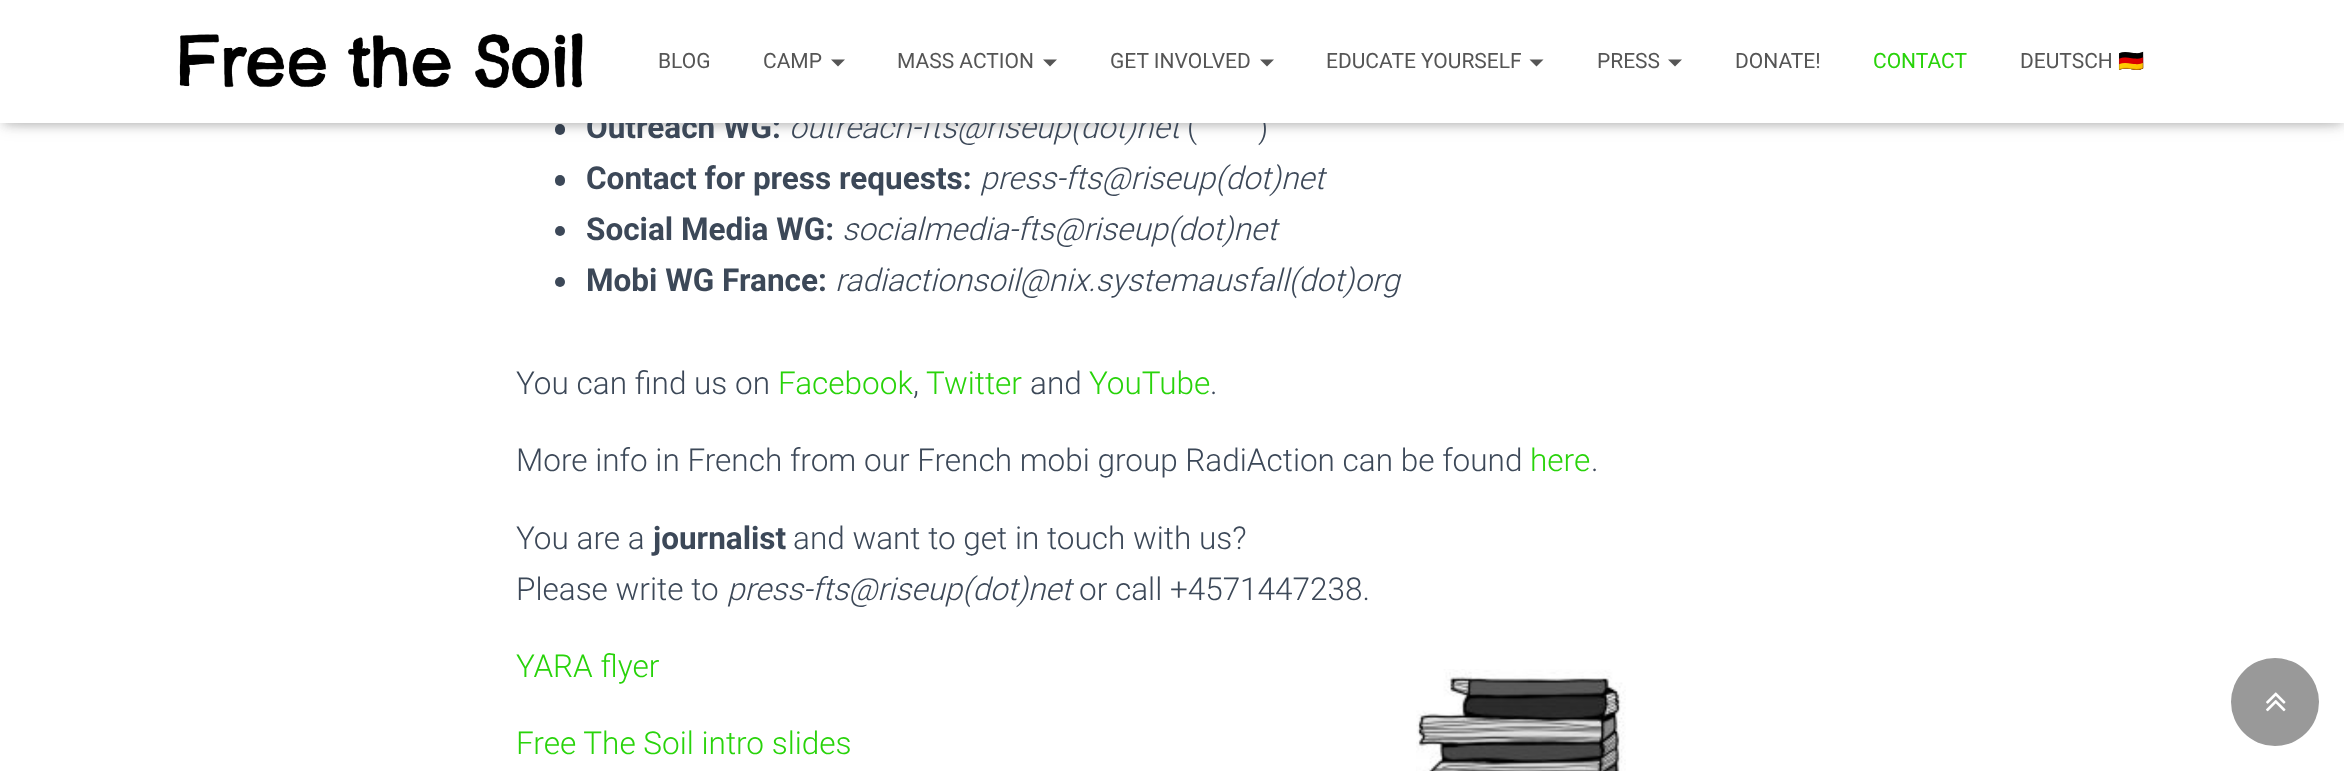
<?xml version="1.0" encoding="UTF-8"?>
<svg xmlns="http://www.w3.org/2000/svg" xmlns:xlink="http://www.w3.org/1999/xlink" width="2344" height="771">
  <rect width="100%" height="100%" fill="#ffffff" />
  <rect x="555" y="124" width="10" height="11" rx="5" fill="#3c4858" />
  <rect x="4" y="11" width="2338" height="115" fill="#000000" fill-opacity="0.1" filter="blur(4.5px)" />
  <rect y="2" width="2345" height="122" fill="#000000" fill-opacity="0.12" filter="blur(9px)" />
  <rect x="11" y="12" width="2324" height="102" fill="#000000" fill-opacity="0.42" filter="blur(9px)" />
  <rect x="555" y="175" width="10" height="11" rx="5" fill="#3c4858" />
  <circle cx="560" cy="231" r="5" fill="#3c4858" />
  <circle cx="560" cy="282" r="5" fill="#3c4858" />
  <image x="1416" y="669" width="210" height="102" xlink:href="image2.png" />
  <circle cx="2275" cy="702" r="44" fill="#999999" />
  <image x="2266" y="692" width="20" height="20" xlink:href="image3.png" />
  <text x="586" y="138" style="font-family: Roboto; font-size: 31.5px; font-weight: bold; fill: #3c4858">Outreach WG:</text>
  <text x="789" y="138" style="font-family: Roboto; font-size: 31.5px; font-weight: 300; font-style: italic; fill: #3c4858">outreach-fts@riseup(dot)net</text>
  <text x="1187" y="138" style="font-family: Roboto; font-size: 31.5px; font-weight: 300; fill: #3c4858">(</text>
  <text x="1258" y="138" style="font-family: Roboto; font-size: 31.5px; font-weight: 300; fill: #3c4858">)</text>
  <rect width="2344" height="123" fill="#ffffff" />
  <text x="2118" y="68" style="font-family: Noto Color Emoji; font-size: 21px; fill: #555555">🇩🇪</text>
  <text x="2020" y="68" style="font-family: Roboto; font-size: 21px; fill: #555555">DEUTSCH</text>
  <text x="1873" y="68" style="font-family: Roboto; font-size: 21px; fill: #28d30a">CONTACT</text>
  <text x="1735" y="68" style="font-family: Roboto; font-size: 21px; fill: #555555">DONATE!</text>
  <path d="M 1668 59.5 h 14 l -7 7 z" fill="#555555" />
  <text x="1597" y="68" style="font-family: Roboto; font-size: 21px; fill: #555555">PRESS</text>
  <path d="M 1529.5 59.5 h 14 l -7 7 z" fill="#555555" />
  <text x="1326" y="68" style="font-family: Roboto; font-size: 21px; fill: #555555">EDUCATE YOURSELF</text>
  <path d="M 1260 59.5 h 14 l -7 7 z" fill="#555555" />
  <text x="1110" y="68" style="font-family: Roboto; font-size: 21px; fill: #555555">GET INVOLVED</text>
  <path d="M 1043 59.5 h 14 l -7 7 z" fill="#555555" />
  <text x="897" y="68" style="font-family: Roboto; font-size: 21px; fill: #555555">MASS ACTION</text>
  <path d="M 831 59.5 h 14 l -7 7 z" fill="#555555" />
  <text x="763" y="68" style="font-family: Roboto; font-size: 21px; fill: #555555">CAMP</text>
  <text x="658" y="68" style="font-family: Roboto; font-size: 21px; fill: #555555">BLOG</text>
  <image x="179" y="33" width="404" height="56" xlink:href="image1.png" />
  <text x="586" y="189" style="font-family: Roboto; font-size: 31.5px; font-weight: bold; fill: #3c4858">Contact for press requests:</text>
  <text x="980" y="189" style="font-family: Roboto; font-size: 31.5px; font-weight: 300; font-style: italic; fill: #3c4858">press-fts@riseup(dot)net</text>
  <text x="586" y="240" style="font-family: Roboto; font-size: 31.5px; font-weight: bold; fill: #3c4858">Social Media WG:</text>
  <text x="842" y="240" style="font-family: Roboto; font-size: 31.5px; font-weight: 300; font-style: italic; fill: #3c4858">socialmedia-fts@riseup(dot)net</text>
  <text x="586" y="291" style="font-family: Roboto; font-size: 31.5px; font-weight: bold; fill: #3c4858">Mobi WG France:</text>
  <text x="835" y="291" style="font-family: Roboto; font-size: 31.5px; font-weight: 300; font-style: italic; fill: #3c4858">radiactionsoil@nix.systemausfall(dot)org</text>
  <text x="516" y="394" style="font-family: Roboto; font-size: 31.5px; font-weight: 300; fill: #3c4858">You can find us on</text>
  <text x="778" y="394" style="font-family: Roboto; font-size: 31.5px; font-weight: 300; fill: #28d30a">Facebook</text>
  <text x="913" y="394" style="font-family: Roboto; font-size: 31.5px; font-weight: 300; fill: #3c4858">,</text>
  <text x="926" y="394" style="font-family: Roboto; font-size: 31.5px; font-weight: 300; fill: #28d30a">Twitter</text>
  <text x="1030" y="394" style="font-family: Roboto; font-size: 31.5px; font-weight: 300; fill: #3c4858">and</text>
  <text x="1089" y="394" style="font-family: Roboto; font-size: 31.5px; font-weight: 300; fill: #28d30a">YouTube</text>
  <text x="1210" y="394" style="font-family: Roboto; font-size: 31.5px; font-weight: 300; fill: #3c4858">.</text>
  <text x="516" y="471" style="font-family: Roboto; font-size: 31.5px; font-weight: 300; fill: #3c4858">More info in French from our French mobi group RadiAction can be found</text>
  <text x="1530" y="471" style="font-family: Roboto; font-size: 31.5px; font-weight: 300; fill: #28d30a">here</text>
  <text x="1591" y="471" style="font-family: Roboto; font-size: 31.5px; font-weight: 300; fill: #3c4858">.</text>
  <text x="516" y="549" style="font-family: Roboto; font-size: 31.5px; font-weight: 300; fill: #3c4858">You are a</text>
  <text x="653" y="549" style="font-family: Roboto; font-size: 31.5px; font-weight: bold; fill: #3c4858">journalist</text>
  <text x="793" y="549" style="font-family: Roboto; font-size: 31.5px; font-weight: 300; fill: #3c4858">and want to get in touch with us?</text>
  <text x="516" y="600" style="font-family: Roboto; font-size: 31.5px; font-weight: 300; fill: #3c4858">Please write to</text>
  <text x="727" y="600" style="font-family: Roboto; font-size: 31.5px; font-weight: 300; font-style: italic; fill: #3c4858">press-fts@riseup(dot)net</text>
  <text x="1079" y="600" style="font-family: Roboto; font-size: 31.5px; font-weight: 300; fill: #3c4858">or call +4571447238.</text>
  <text x="516" y="677" style="font-family: Roboto; font-size: 31.5px; font-weight: 300; fill: #28d30a">YARA flyer</text>
  <text x="516" y="754" style="font-family: Roboto; font-size: 31.5px; font-weight: 300; fill: #28d30a">Free The Soil intro slides</text>
</svg>
